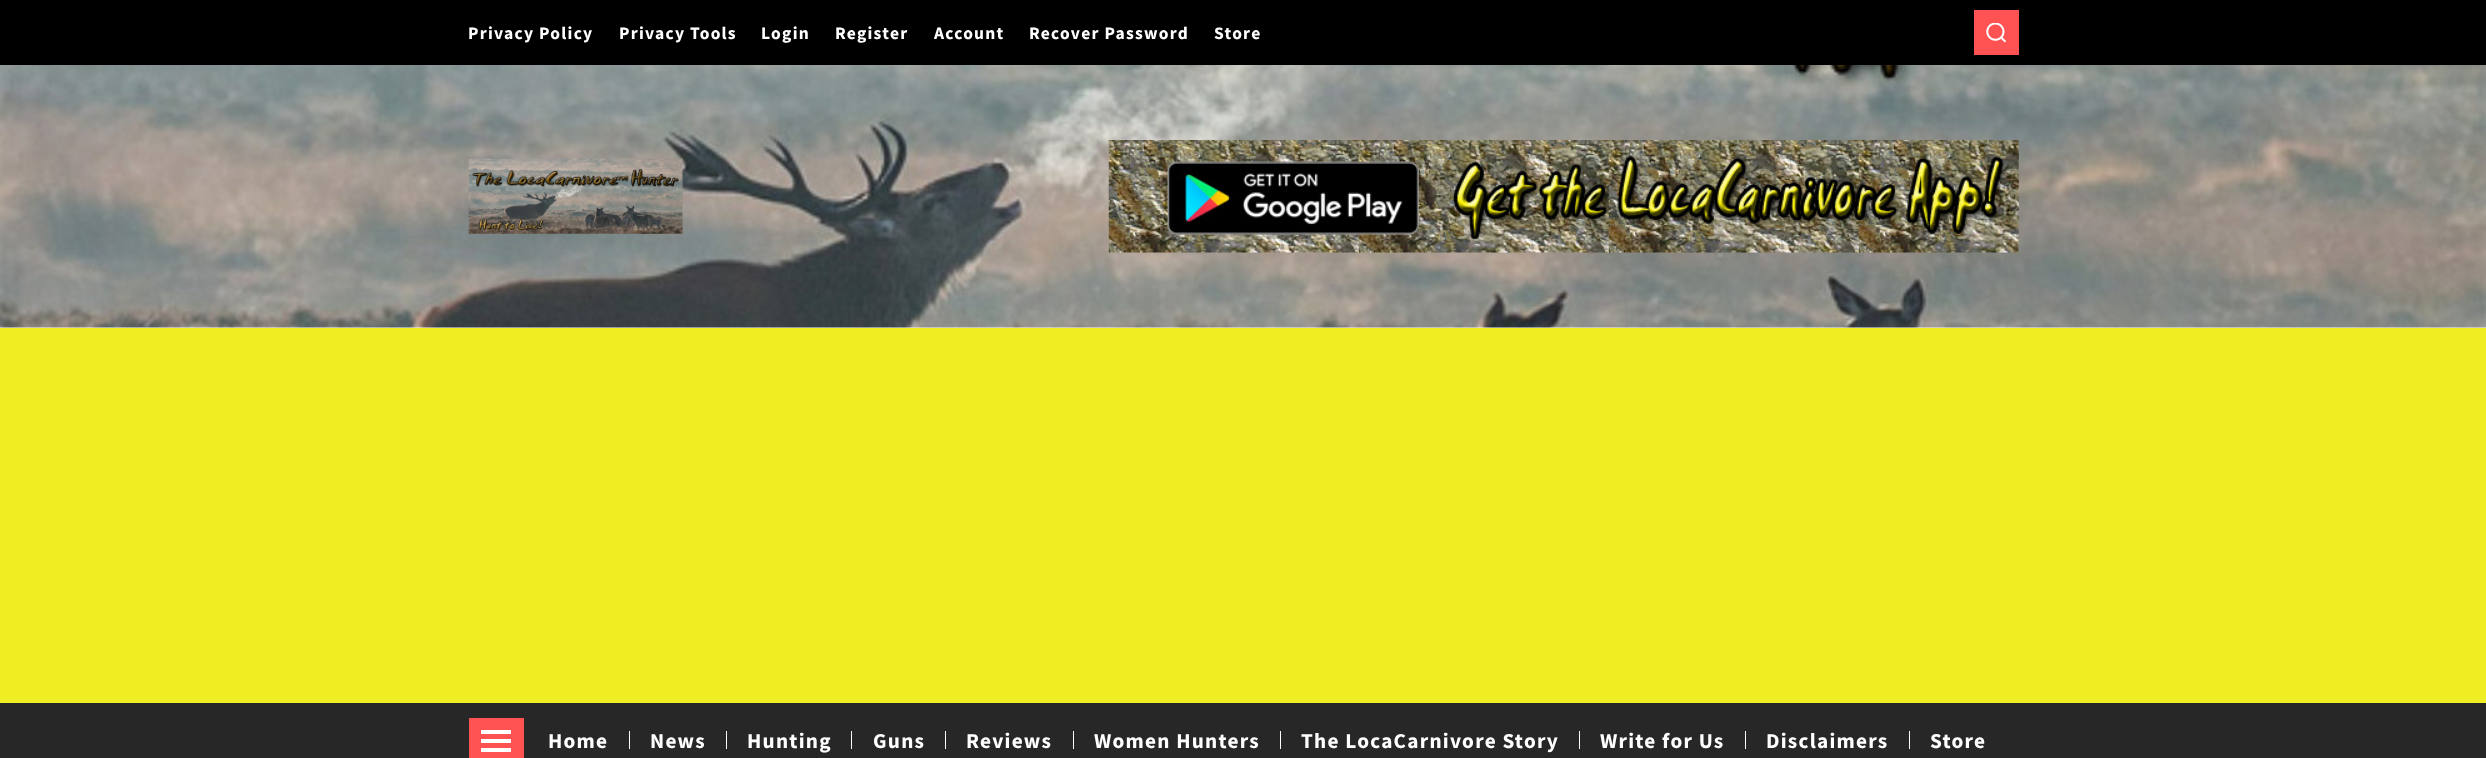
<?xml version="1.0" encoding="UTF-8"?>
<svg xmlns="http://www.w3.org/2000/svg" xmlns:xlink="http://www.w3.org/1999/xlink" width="2486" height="758">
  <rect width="100%" height="100%" fill="#eeee22" />
  <rect width="2486" height="65" fill="#000000" />
  <rect x="1974" y="10" width="45" height="45" fill="#ff5252" />
  <image x="1986" y="23" width="20" height="20" xlink:href="image1.png" />
  <rect y="327" width="2486" height="1" fill="#ffffff" />
  <image x="0" y="65" width="2486" height="263" xlink:href="image2.png" />
  <image x="468" y="158" width="215" height="76" xlink:href="image3.png" />
  <image x="1108" y="140" width="911" height="113" xlink:href="image4.png" />
  <rect y="703" width="2486" height="55" fill="#272727" />
  <rect x="469" y="718" width="55" height="40" fill="#ff5252" />
  <rect x="481" y="730" width="30" height="4" fill="#ffffff" />
  <rect x="481" y="739" width="30" height="4" fill="#ffffff" />
  <rect x="481" y="748" width="30" height="4" fill="#ffffff" />
  <rect x="629" y="731" width="1" height="18" fill="#ffffff" />
  <rect x="726" y="731" width="1" height="18" fill="#ffffff" />
  <rect x="851" y="731" width="1" height="18" fill="#ffffff" />
  <rect x="945" y="731" width="1" height="18" fill="#ffffff" />
  <rect x="1073" y="731" width="1" height="18" fill="#ffffff" />
  <rect x="1280" y="731" width="1" height="18" fill="#ffffff" />
  <rect x="1579" y="731" width="1" height="18" fill="#ffffff" />
  <rect x="1745" y="731" width="1" height="18" fill="#ffffff" />
  <rect x="1909" y="731" width="1" height="18" fill="#ffffff" />
  <text x="468" y="39" style="font-family: Source Sans Pro; font-size: 17.5px; font-weight: bold; letter-spacing: 1.25px; fill: #ffffff">Privacy Policy</text>
  <text x="619" y="39" style="font-family: Source Sans Pro; font-size: 17.5px; font-weight: bold; letter-spacing: 1.25px; fill: #ffffff">Privacy Tools</text>
  <text x="761" y="39" style="font-family: Source Sans Pro; font-size: 17.5px; font-weight: bold; letter-spacing: 1.25px; fill: #ffffff">Login</text>
  <text x="835" y="39" style="font-family: Source Sans Pro; font-size: 17.5px; font-weight: bold; letter-spacing: 1.25px; fill: #ffffff">Register</text>
  <text x="934" y="39" style="font-family: Source Sans Pro; font-size: 17.5px; font-weight: bold; letter-spacing: 1.25px; fill: #ffffff">Account</text>
  <text x="1029" y="39" style="font-family: Source Sans Pro; font-size: 17.5px; font-weight: bold; letter-spacing: 1.25px; fill: #ffffff">Recover Password</text>
  <text x="1214" y="39" style="font-family: Source Sans Pro; font-size: 17.5px; font-weight: bold; letter-spacing: 1.25px; fill: #ffffff">Store</text>
  <text x="548" y="748" style="font-family: Source Sans Pro; font-size: 21.25px; font-weight: bold; letter-spacing: 1.25px; fill: #ffffff">Home</text>
  <text x="650" y="748" style="font-family: Source Sans Pro; font-size: 21.25px; font-weight: bold; letter-spacing: 1.25px; fill: #ffffff">News</text>
  <text x="747" y="748" style="font-family: Source Sans Pro; font-size: 21.25px; font-weight: bold; letter-spacing: 1.25px; fill: #ffffff">Hunting</text>
  <text x="873" y="748" style="font-family: Source Sans Pro; font-size: 21.25px; font-weight: bold; letter-spacing: 1.25px; fill: #ffffff">Guns</text>
  <text x="966" y="748" style="font-family: Source Sans Pro; font-size: 21.25px; font-weight: bold; letter-spacing: 1.25px; fill: #ffffff">Reviews</text>
  <text x="1094" y="748" style="font-family: Source Sans Pro; font-size: 21.25px; font-weight: bold; letter-spacing: 1.25px; fill: #ffffff">Women Hunters</text>
  <text x="1301" y="748" style="font-family: Source Sans Pro; font-size: 21.25px; font-weight: bold; letter-spacing: 1.25px; fill: #ffffff">The LocaCarnivore Story</text>
  <text x="1600" y="748" style="font-family: Source Sans Pro; font-size: 21.25px; font-weight: bold; letter-spacing: 1.25px; fill: #ffffff">Write for Us</text>
  <text x="1766" y="748" style="font-family: Source Sans Pro; font-size: 21.25px; font-weight: bold; letter-spacing: 1.25px; fill: #ffffff">Disclaimers</text>
  <text x="1930" y="748" style="font-family: Source Sans Pro; font-size: 21.25px; font-weight: bold; letter-spacing: 1.25px; fill: #ffffff">Store</text>
</svg>
